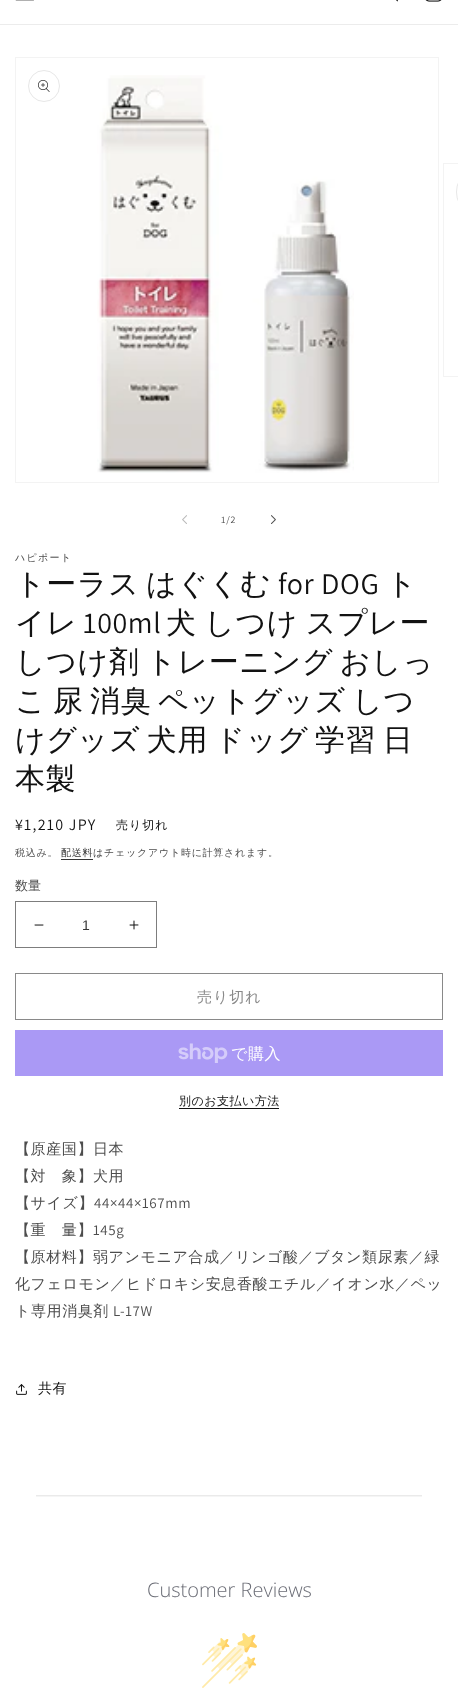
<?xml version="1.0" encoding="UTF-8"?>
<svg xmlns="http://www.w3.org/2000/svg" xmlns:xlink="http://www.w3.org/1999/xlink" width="458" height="1697">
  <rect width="100%" height="100%" fill="#ffffff" />
  <rect y="24" width="458" height="1" fill="#ececec" />
  <image x="15" y="0" width="19" height="1" xlink:href="image1.png" />
  <image x="396" y="0" width="2" height="2" xlink:href="image2.png" />
  <image x="425" y="0" width="17" height="2" xlink:href="image3.png" />
  <rect x="15.5" y="57.5" width="423" height="425" fill="none" stroke="#f3f3f3" />
  <image x="97" y="75" width="257" height="398" xlink:href="image4.png" />
  <circle cx="44" cy="86" r="15.5" fill="none" stroke="#e7e7e7" />
  <image x="38" y="80" width="12" height="12" xlink:href="image5.png" />
  <rect x="443.5" y="163.5" width="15" height="213" fill="none" stroke="#f3f3f3" />
  <rect x="456.5" y="176.5" width="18" height="31" rx="15.5" fill="none" stroke="#e7e7e7" />
  <image x="182" y="515" width="5" height="9" xlink:href="image6.png" />
  <image x="271" y="515" width="5" height="9" xlink:href="image7.png" />
  <rect x="61" y="859" width="32" height="1" fill="#363636" />
  <image x="34" y="924" width="10" height="2" xlink:href="image8.png" />
  <image x="129" y="920" width="10" height="10" xlink:href="image9.png" />
  <rect x="15.5" y="901.5" width="141" height="46" fill="none" stroke="#7d7d7d" />
  <rect x="15.5" y="973.5" width="427" height="46" fill="none" stroke="#898989" />
  <rect x="15" y="1030" width="428" height="46" fill="#aa99f5" />
  <image x="178" y="1043" width="50" height="20" xlink:href="image10.png" />
  <rect x="179" y="1108" width="100" height="1" fill="#121212" />
  <image x="16" y="1384" width="11" height="11" xlink:href="image11.png" />
  <image x="36" y="1495" width="386" height="2" xlink:href="image12.png" />
  <image x="202" y="1633" width="55" height="55" xlink:href="image13.png" />
  <text x="221" y="523" style="font-family: Assistant; font-size: 10px; letter-spacing: 0.75px; fill: #4d4d4d">1/2</text>
  <text x="15" y="561" style="font-family: WenQuanYi Zen Hei; font-size: 10px; font-weight: 500; letter-spacing: 1.25px; fill: #4d4d4d">ハピポート</text>
  <text x="15" y="594" style="font-family: WenQuanYi Zen Hei; font-size: 30px; font-weight: 500; letter-spacing: 0.6px; fill: #121212">トーラス</text>
  <text x="146" y="594" style="font-family: WenQuanYi Zen Hei; font-size: 30px; font-weight: 500; letter-spacing: 0.6px; fill: #121212">はぐくむ</text>
  <text x="278" y="594" style="font-family: Assistant; font-size: 30px; letter-spacing: 0.6px; fill: #121212">for DOG</text>
  <text x="386" y="594" style="font-family: WenQuanYi Zen Hei; font-size: 30px; font-weight: 500; letter-spacing: 0.6px; fill: #121212">ト</text>
  <text x="15" y="633" style="font-family: WenQuanYi Zen Hei; font-size: 30px; font-weight: 500; letter-spacing: 0.6px; fill: #121212">イレ</text>
  <text x="83" y="633" style="font-family: Assistant; font-size: 30px; letter-spacing: 0.6px; fill: #121212">100ml</text>
  <text x="166" y="633" word-spacing="-2" style="font-family: WenQuanYi Zen Hei; font-size: 30px; font-weight: 500; letter-spacing: 0.6px; fill: #121212">犬 しつけ スプレー</text>
  <text x="15" y="672" word-spacing="-3" style="font-family: WenQuanYi Zen Hei; font-size: 30px; font-weight: 500; letter-spacing: 0.6px; fill: #121212">しつけ剤 トレーニング おしっ</text>
  <text x="15" y="711" word-spacing="-3" style="font-family: WenQuanYi Zen Hei; font-size: 30px; font-weight: 500; letter-spacing: 0.6px; fill: #121212">こ 尿 消臭 ペットグッズ しつ</text>
  <text x="15" y="750" word-spacing="-3" style="font-family: WenQuanYi Zen Hei; font-size: 30px; font-weight: 500; letter-spacing: 0.6px; fill: #121212">けグッズ 犬用 ドッグ</text>
  <text x="315" y="750" word-spacing="-3" style="font-family: WenQuanYi Zen Hei; font-size: 30px; font-weight: 500; letter-spacing: 0.6px; fill: #121212">学習 日</text>
  <text x="15" y="789" style="font-family: WenQuanYi Zen Hei; font-size: 30px; font-weight: 500; letter-spacing: 0.6px; fill: #121212">本製</text>
  <text x="15" y="830" style="font-family: Assistant; font-size: 16px; letter-spacing: 1.25px; fill: #121212">¥1,210 JPY</text>
  <text x="116" y="829" style="font-family: WenQuanYi Zen Hei; font-size: 12px; font-weight: 500; letter-spacing: 1px; fill: #121212">売り切れ</text>
  <text x="15" y="856" style="font-family: WenQuanYi Zen Hei; font-size: 10px; font-weight: 500; letter-spacing: 0.75px; fill: #4d4d4d">税込み。</text>
  <text x="61" y="856" style="font-family: WenQuanYi Zen Hei; font-size: 10px; font-weight: 500; letter-spacing: 0.75px; fill: #363636">配送料</text>
  <text x="93" y="856" style="font-family: WenQuanYi Zen Hei; font-size: 10px; font-weight: 500; letter-spacing: 0.75px; fill: #4d4d4d">はチェックアウト時に計算されます。</text>
  <text x="15" y="890" style="font-family: WenQuanYi Zen Hei; font-size: 13px; font-weight: 500; fill: #4d4d4d">数量</text>
  <text x="82" y="930" style="font-family: Liberation Sans; font-size: 14px; fill: #363636">1</text>
  <text x="197" y="1002" style="font-family: WenQuanYi Zen Hei; font-size: 15px; font-weight: 500; letter-spacing: 1px; fill: #898989">売り切れ</text>
  <text x="231" y="1059" style="font-family: WenQuanYi Zen Hei; font-size: 16px; font-weight: 500; letter-spacing: 0.6px; fill: #ffffff">で購入</text>
  <text x="179" y="1105" style="font-family: WenQuanYi Zen Hei; font-size: 12px; font-weight: 500; letter-spacing: 0.5px; fill: #121212">別のお支払い方法</text>
  <text x="15" y="1154" style="font-family: WenQuanYi Zen Hei; font-size: 15px; font-weight: 500; letter-spacing: 0.6px; fill: #4d4d4d">【原産国】日本</text>
  <text x="15" y="1181" style="font-family: WenQuanYi Zen Hei; font-size: 15px; font-weight: 500; letter-spacing: 0.6px; fill: #4d4d4d">【対　象】犬用</text>
  <text x="15" y="1208" style="font-family: WenQuanYi Zen Hei; font-size: 15px; font-weight: 500; letter-spacing: 0.6px; fill: #4d4d4d">【サイズ】</text>
  <text x="94" y="1208" style="font-family: Assistant; font-size: 15px; letter-spacing: 0.6px; fill: #4d4d4d">44×44×167mm</text>
  <text x="15" y="1235" style="font-family: WenQuanYi Zen Hei; font-size: 15px; font-weight: 500; letter-spacing: 0.6px; fill: #4d4d4d">【重　量】</text>
  <text x="93" y="1235" style="font-family: Assistant; font-size: 15px; letter-spacing: 0.6px; fill: #4d4d4d">145g</text>
  <text x="15" y="1262" style="font-family: WenQuanYi Zen Hei; font-size: 15px; font-weight: 500; letter-spacing: 0.6px; fill: #4d4d4d">【原材料】弱アンモニア合成／リンゴ酸／ブタン類尿素／緑</text>
  <text x="15" y="1289" style="font-family: WenQuanYi Zen Hei; font-size: 15px; font-weight: 500; letter-spacing: 0.6px; fill: #4d4d4d">化フェロモン／ヒドロキシ安息香酸エチル／イオン水／ペッ</text>
  <text x="15" y="1316" style="font-family: WenQuanYi Zen Hei; font-size: 15px; font-weight: 500; letter-spacing: 0.6px; fill: #4d4d4d">ト専用消臭剤</text>
  <text x="113" y="1316" style="font-family: Assistant; font-size: 15px; letter-spacing: 0.6px; fill: #4d4d4d">L-17W</text>
  <text x="38" y="1393" style="font-family: WenQuanYi Zen Hei; font-size: 14px; font-weight: 500; letter-spacing: 0.6px; fill: #121212">共有</text>
  <text x="147" y="1597" style="font-family: Open Sans; font-size: 20px; font-weight: 300; fill: #6b6d76">Customer Reviews</text>
</svg>
